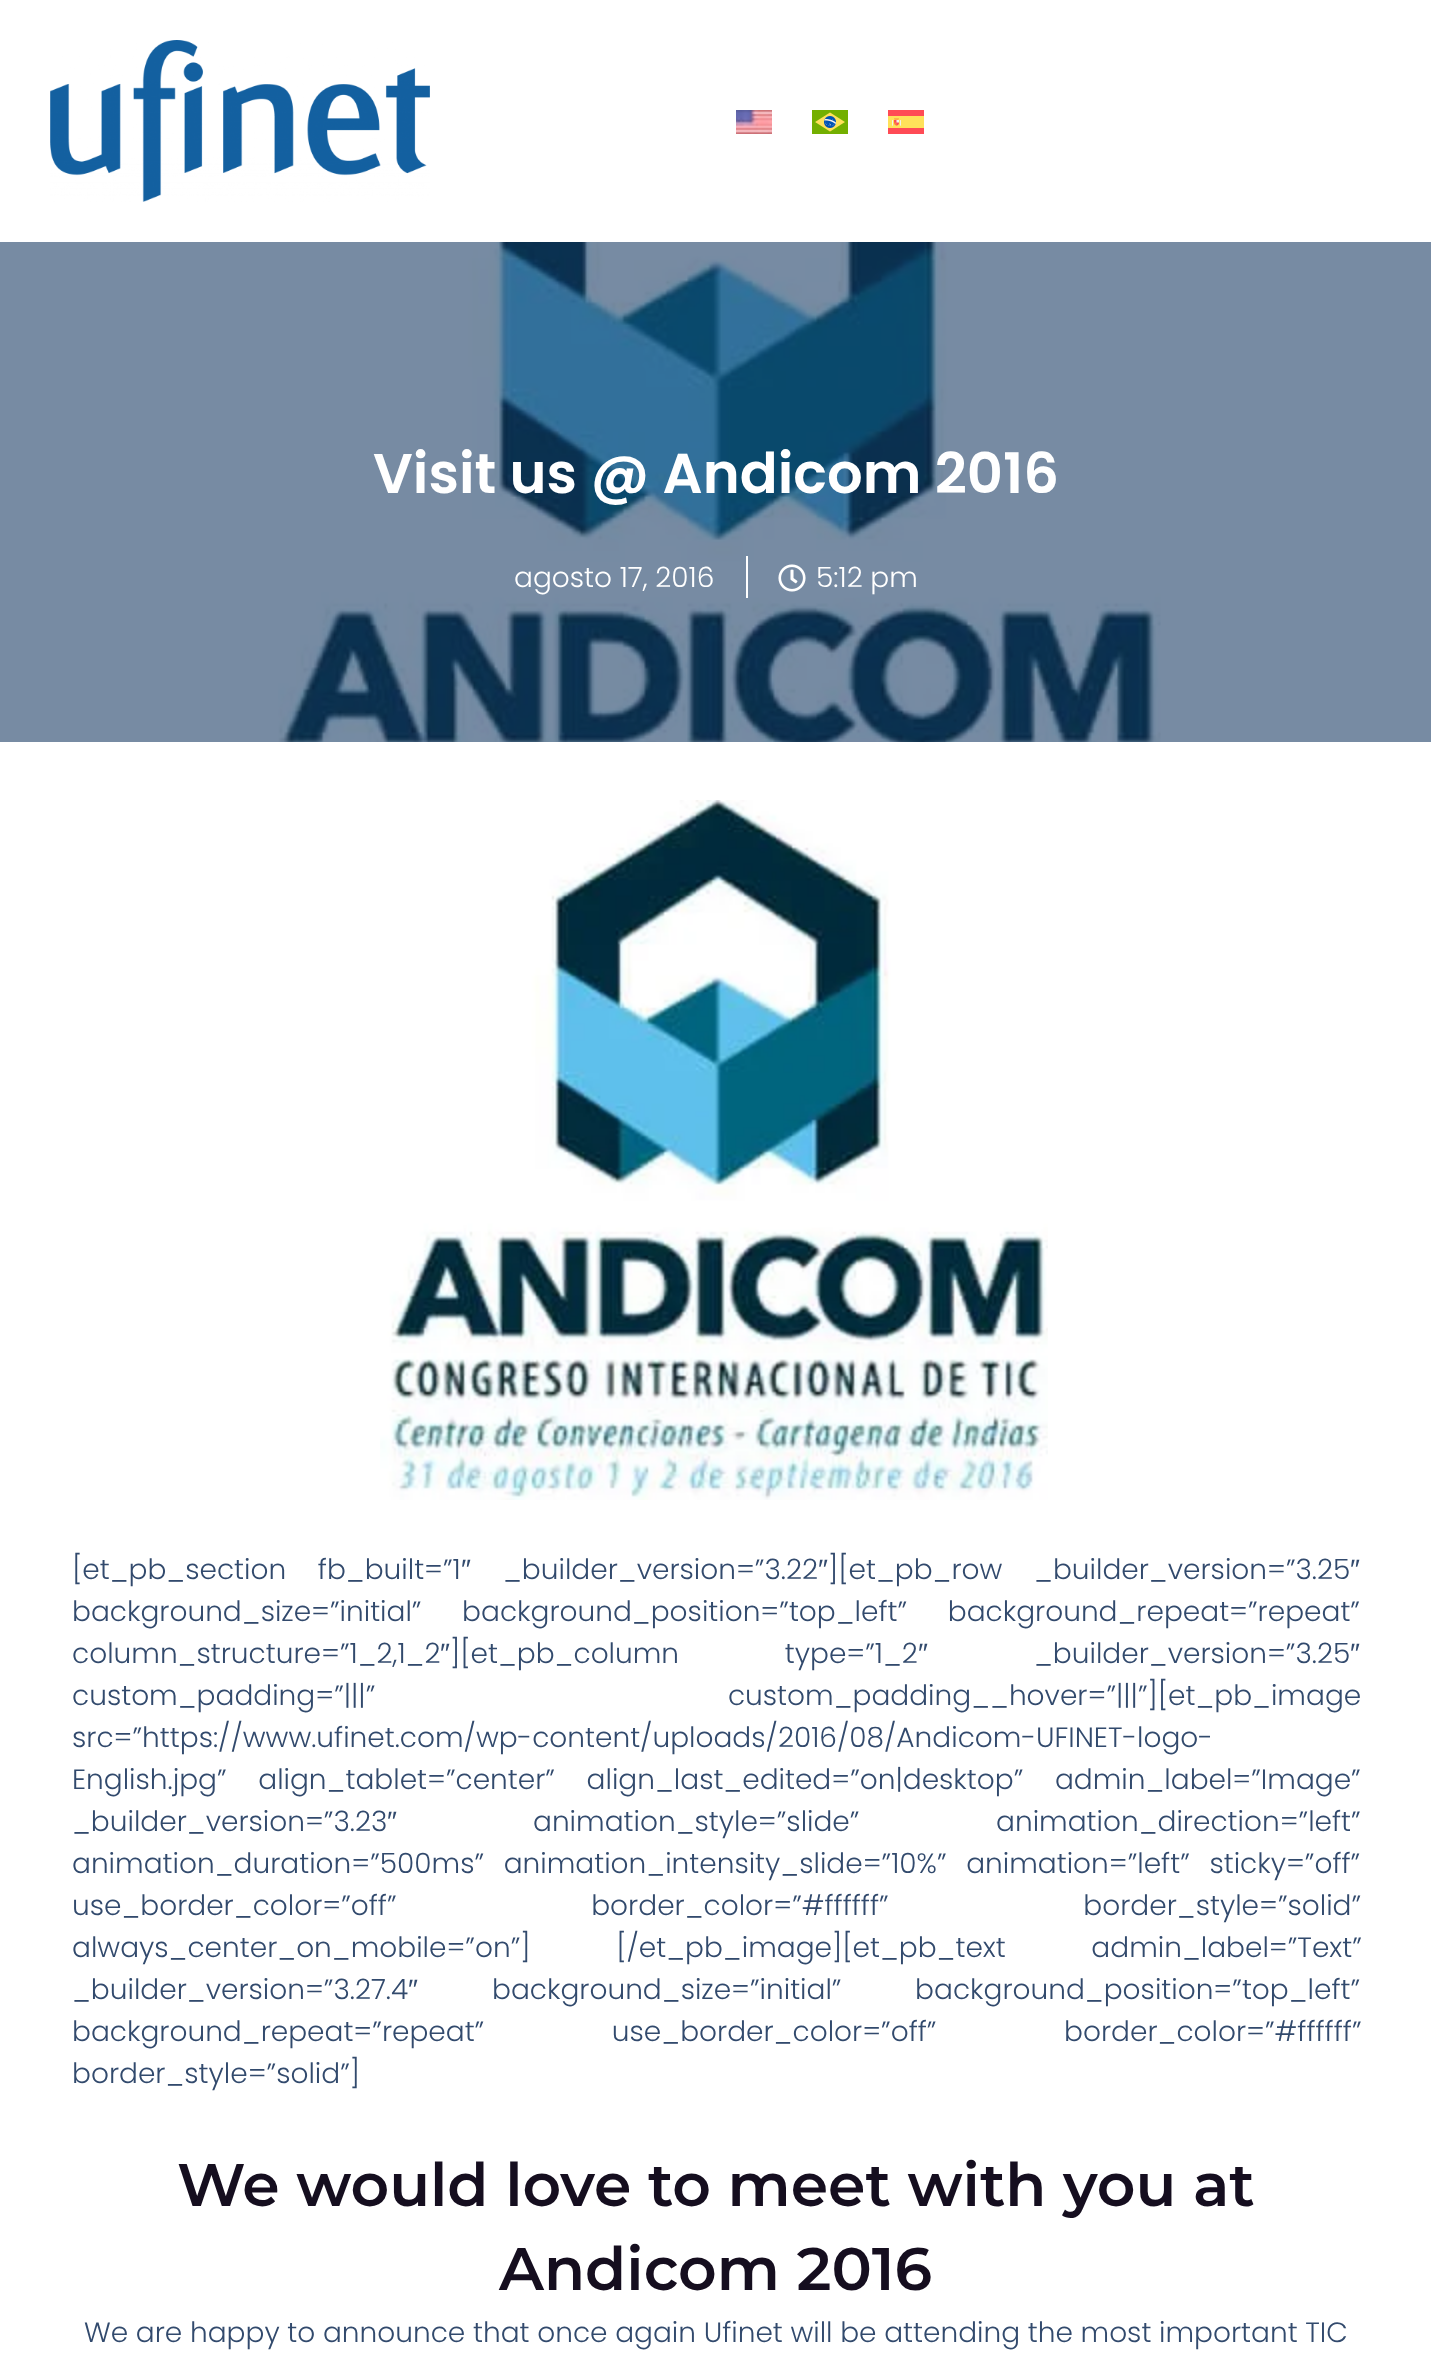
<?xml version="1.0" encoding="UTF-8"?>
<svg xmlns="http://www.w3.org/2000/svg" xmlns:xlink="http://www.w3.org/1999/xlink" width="1431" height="2358">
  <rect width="100%" height="100%" fill="#ffffff" />
  <rect y="242" width="1431" height="500" fill="#778ba3" />
  <image x="50" y="40" width="380" height="162" xlink:href="image1.png" />
  <image x="736" y="110" width="36" height="24" xlink:href="image2.png" />
  <image x="812" y="110" width="36" height="24" xlink:href="image3.png" />
  <image x="888" y="110" width="36" height="24" xlink:href="image4.png" />
  <image x="278" y="242" width="883" height="500" xlink:href="image5.png" />
  <rect x="746" y="556" width="2" height="42" fill="#ffffff" />
  <image x="778" y="564" width="28" height="28" xlink:href="image6.png" />
  <image x="380" y="800" width="668" height="700" xlink:href="image7.png" />
  <text x="373" y="493" style="font-family: Poppins; font-size: 56px; font-weight: 600; fill: #ffffff">Visit us @ Andicom 2016</text>
  <text x="514" y="587" style="font-family: Poppins; font-size: 28px; font-weight: 300; fill: #ffffff">agosto 17, 2016</text>
  <text x="816" y="587" style="font-family: Poppins; font-size: 28px; font-weight: 300; fill: #ffffff">5:12 pm</text>
  <text x="72" y="1579" word-spacing="24" style="font-family: Poppins; font-size: 28px; font-weight: 300; fill: #324a6d">[et_pb_section fb_built=”1</text>
  <text x="461" y="1579" style="font-family: Liberation Sans; font-size: 28px; fill: #324a6d">″</text>
  <text x="503" y="1579" style="font-family: Poppins; font-size: 28px; font-weight: 300; fill: #324a6d">_builder_version=”3.22</text>
  <text x="818" y="1579" style="font-family: Liberation Sans; font-size: 28px; fill: #324a6d">″</text>
  <text x="828" y="1579" word-spacing="24" style="font-family: Poppins; font-size: 28px; font-weight: 300; fill: #324a6d">][et_pb_row _builder_version=”3.25</text>
  <text x="1350" y="1579" style="font-family: Liberation Sans; font-size: 28px; fill: #324a6d">″</text>
  <text x="72" y="1621" word-spacing="33" style="font-family: Poppins; font-size: 28px; font-weight: 300; fill: #324a6d">background_size=”initial” background_position=”top_left” background_repeat=”repeat”</text>
  <text x="72" y="1663" style="font-family: Poppins; font-size: 28px; font-weight: 300; fill: #324a6d">column_structure=”1_2,1_2</text>
  <text x="440" y="1663" style="font-family: Liberation Sans; font-size: 28px; fill: #324a6d">″</text>
  <text x="450" y="1663" word-spacing="98" style="font-family: Poppins; font-size: 28px; font-weight: 300; fill: #324a6d">][et_pb_column type=”1_2</text>
  <text x="918" y="1663" style="font-family: Liberation Sans; font-size: 28px; fill: #324a6d">″</text>
  <text x="1034" y="1663" style="font-family: Poppins; font-size: 28px; font-weight: 300; fill: #324a6d">_builder_version=”3.25</text>
  <text x="1350" y="1663" style="font-family: Liberation Sans; font-size: 28px; fill: #324a6d">″</text>
  <text x="72" y="1705" word-spacing="345" style="font-family: Poppins; font-size: 28px; font-weight: 300; fill: #324a6d">custom_padding=”|||” custom_padding__hover=”|||”][et_pb_image</text>
  <text x="72" y="1747" style="font-family: Poppins; font-size: 28px; font-weight: 300; fill: #324a6d">src=”https://www.ufinet.com/wp-content/uploads/2016/08/Andicom-UFINET-logo-</text>
  <text x="72" y="1789" word-spacing="24" style="font-family: Poppins; font-size: 28px; font-weight: 300; fill: #324a6d">English.jpg” align_tablet=”center” align_last_edited=”on|desktop” admin_label=”Image”</text>
  <text x="72" y="1831" style="font-family: Poppins; font-size: 28px; font-weight: 300; fill: #324a6d">_builder_version=”3.23</text>
  <text x="387" y="1831" style="font-family: Liberation Sans; font-size: 28px; fill: #324a6d">″</text>
  <text x="533" y="1831" word-spacing="129" style="font-family: Poppins; font-size: 28px; font-weight: 300; fill: #324a6d">animation_style=”slide” animation_direction=”left”</text>
  <text x="72" y="1873" word-spacing="12" style="font-family: Poppins; font-size: 28px; font-weight: 300; fill: #324a6d">animation_duration=”500ms” animation_intensity_slide=”10%” animation=”left” sticky=”off”</text>
  <text x="72" y="1915" word-spacing="187" style="font-family: Poppins; font-size: 28px; font-weight: 300; fill: #324a6d">use_border_color=”off” border_color=”#ffffff” border_style=”solid”</text>
  <text x="72" y="1957" word-spacing="78" style="font-family: Poppins; font-size: 28px; font-weight: 300; fill: #324a6d">always_center_on_mobile=”on”] [/et_pb_image][et_pb_text admin_label=”Text”</text>
  <text x="72" y="1999" style="font-family: Poppins; font-size: 28px; font-weight: 300; fill: #324a6d">_builder_version=”3.27.4</text>
  <text x="408" y="1999" style="font-family: Liberation Sans; font-size: 28px; fill: #324a6d">″</text>
  <text x="492" y="1999" word-spacing="66" style="font-family: Poppins; font-size: 28px; font-weight: 300; fill: #324a6d">background_size=”initial” background_position=”top_left”</text>
  <text x="72" y="2041" word-spacing="120" style="font-family: Poppins; font-size: 28px; font-weight: 300; fill: #324a6d">background_repeat=”repeat” use_border_color=”off” border_color=”#ffffff”</text>
  <text x="72" y="2083" style="font-family: Poppins; font-size: 28px; font-weight: 300; fill: #324a6d">border_style=”solid”]</text>
  <text x="177" y="2206" style="font-family: Montserrat; font-size: 60px; font-weight: 600; fill: #150e1f">We would love to meet with you at</text>
  <text x="499" y="2290" style="font-family: Montserrat; font-size: 60px; font-weight: 600; fill: #150e1f">Andicom 2016</text>
  <text x="84" y="2342" style="font-family: Poppins; font-size: 28px; font-weight: 300; fill: #324a6d">We are happy to announce that once again Ufinet will be attending the most important TIC</text>
</svg>
